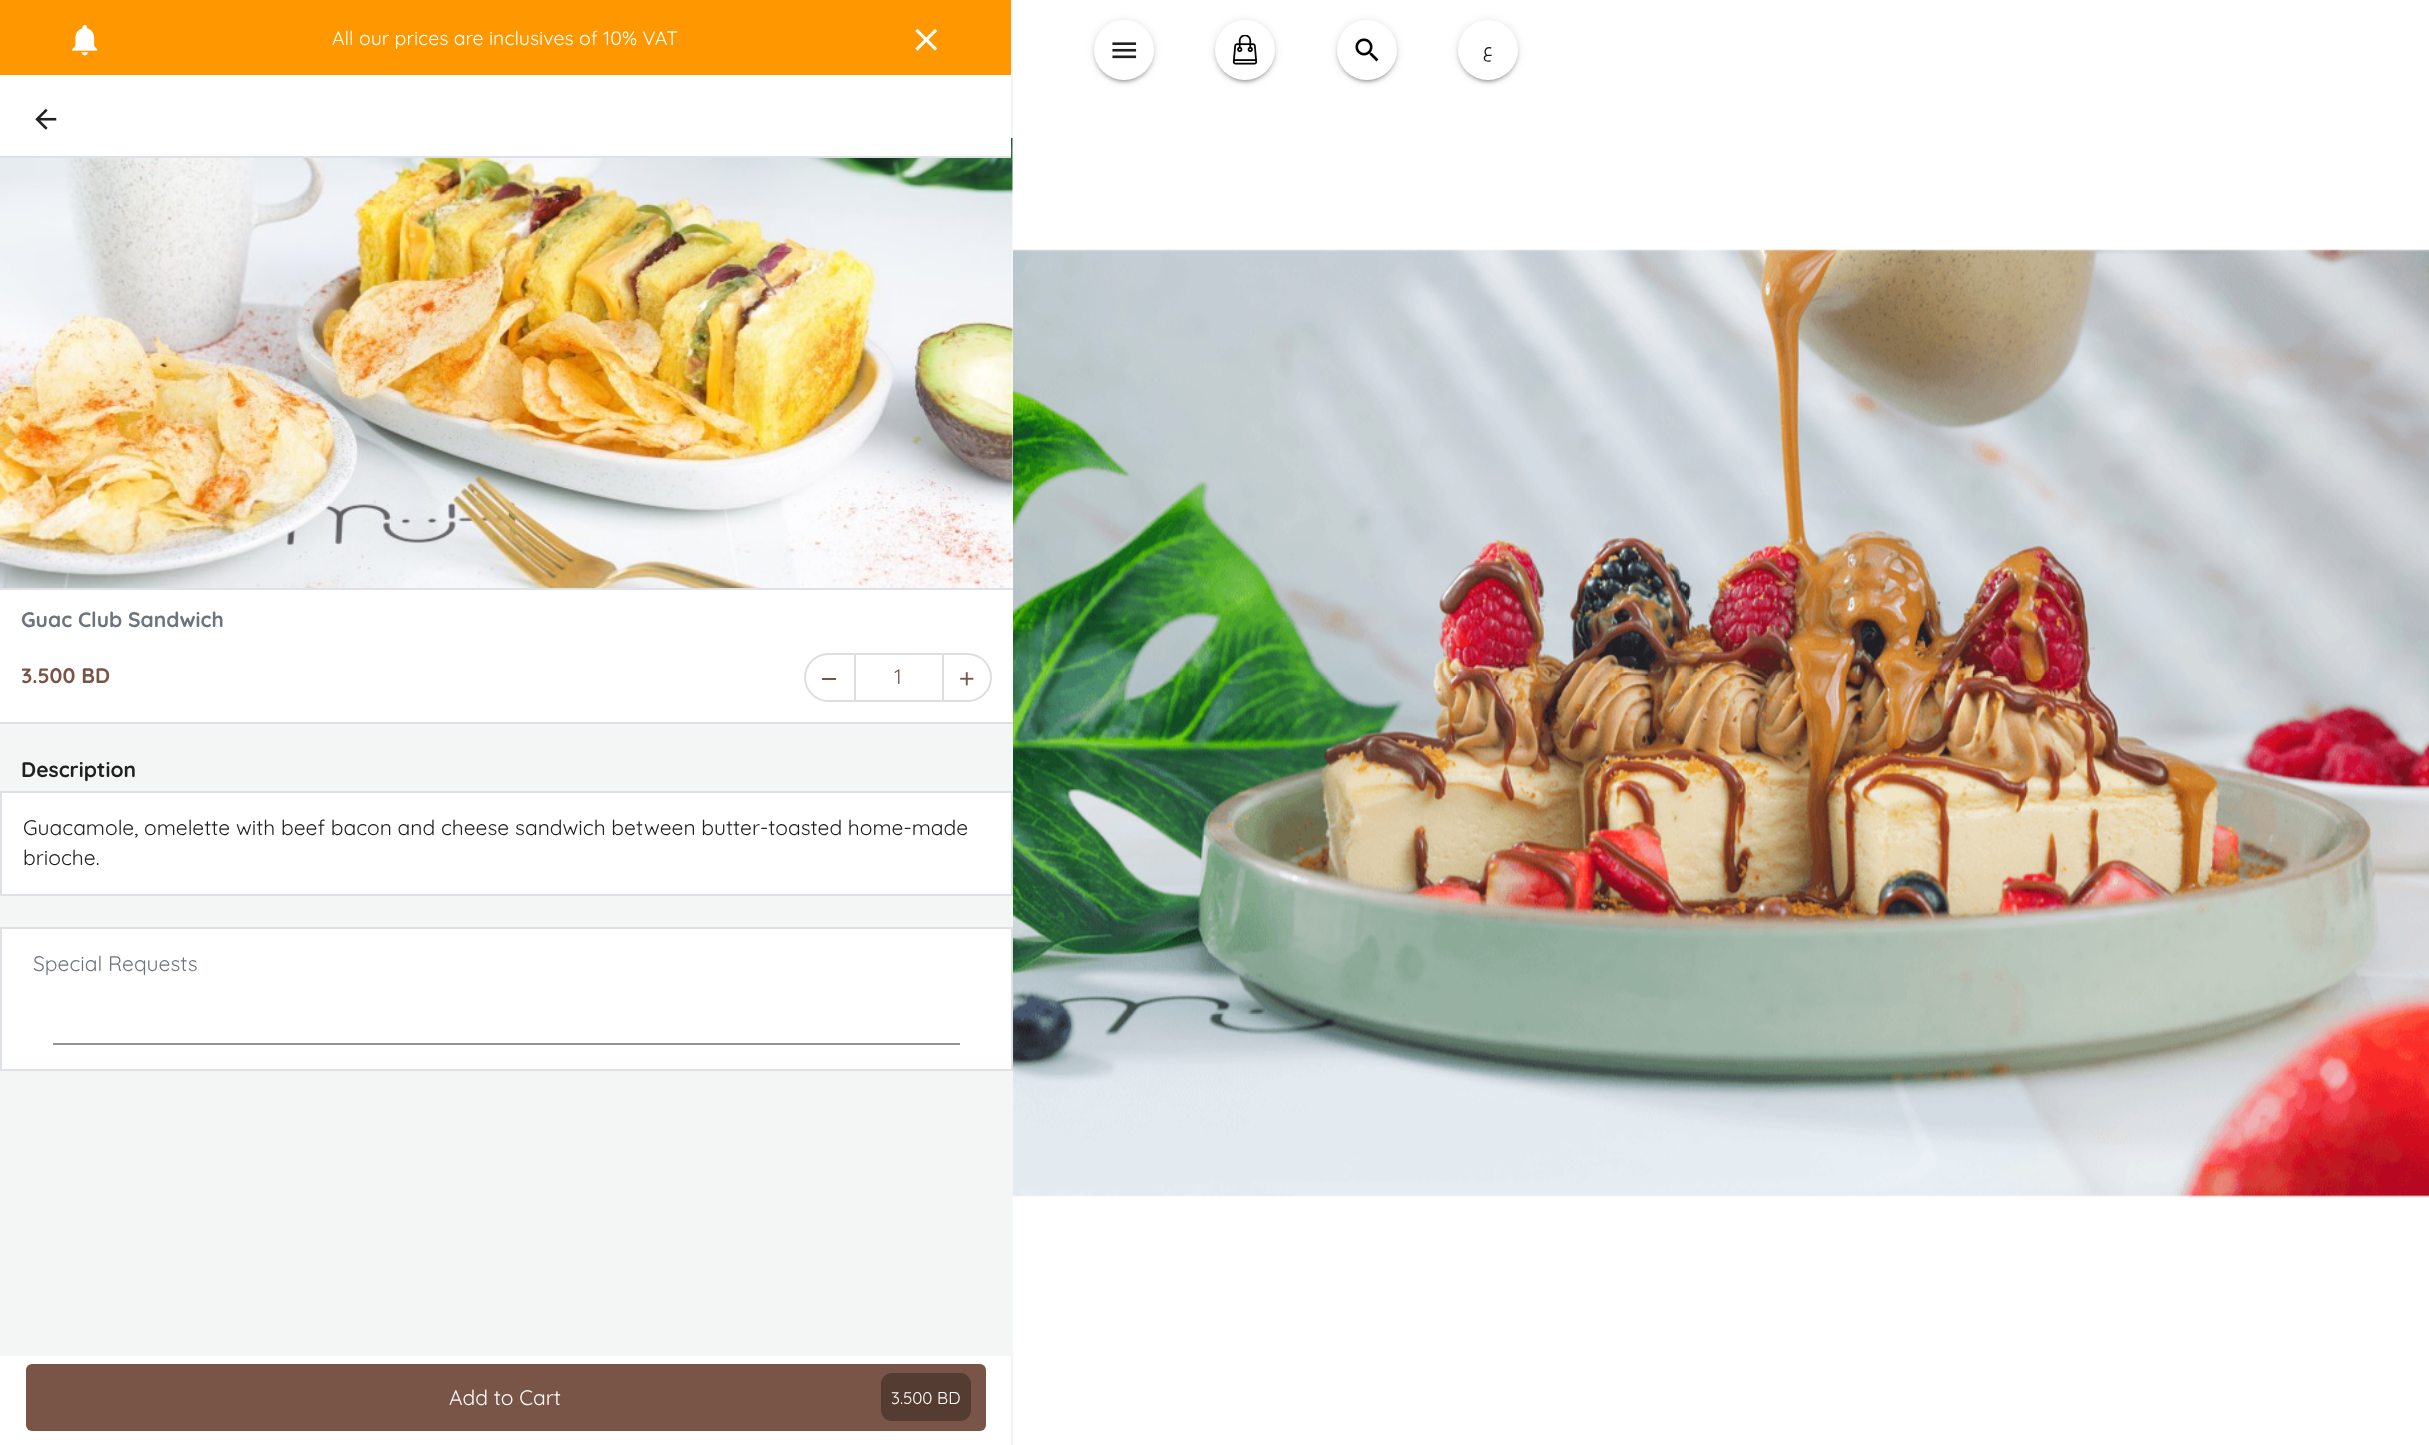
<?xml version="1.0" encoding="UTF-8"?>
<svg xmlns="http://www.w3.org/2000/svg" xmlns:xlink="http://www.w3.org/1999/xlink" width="2429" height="1445">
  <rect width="100%" height="100%" fill="#f4f5f5" />
  <rect width="1011" height="75" fill="#ff9800" />
  <image x="72" y="24" width="26" height="32" xlink:href="image1.png" />
  <image x="915" y="28" width="23" height="23" xlink:href="image2.png" />
  <rect x="1012" y="138" width="1" height="450" fill="#ffffff" />
  <image x="0" y="138" width="1013" height="450" xlink:href="image4.png" />
  <rect y="75" width="1011" height="81" fill="#ffffff" />
  <rect y="156" width="1011" height="2" fill="#dee2e6" />
  <image x="35" y="108" width="22" height="22" xlink:href="image3.png" />
  <rect y="590" width="1013" height="132" fill="#ffffff" />
  <rect y="588" width="1013" height="2" fill="#dee2e6" />
  <rect y="722" width="1013" height="2" fill="#dee2e6" />
  <rect x="805" y="654" width="186" height="47" rx="23.5" fill="none" stroke="#dedede" stroke-width="2" />
  <rect x="822" y="678" width="14" height="2" fill="#795548" />
  <rect x="942" y="653" width="2" height="48" fill="#dedede" />
  <rect x="854" y="653" width="2" height="48" fill="#dedede" />
  <image x="960" y="672" width="14" height="14" xlink:href="image5.png" />
  <rect x="1" y="792" width="1011" height="103" fill="#ffffff" stroke="#dee2e6" stroke-width="2" />
  <rect x="1" y="928" width="1011" height="142" fill="#ffffff" stroke="#dee2e6" stroke-width="2" />
  <rect x="53" y="1043" width="907" height="2" fill="#949494" />
  <rect y="1356" width="1011" height="89" fill="#ffffff" />
  <rect x="26" y="1364" width="960" height="67" rx="6" fill="#795548" />
  <rect x="881" y="1373" width="90" height="48" rx="11" fill="#553c32" />
  <image x="1013" y="0" width="1416" height="1445" xlink:href="image6.png" />
  <rect x="1094" y="21" width="60" height="60" rx="30" fill="#000000" fill-opacity="0.12" filter="blur(4px)" />
  <rect x="1094" y="23" width="60" height="60" rx="30" fill="#000000" fill-opacity="0.14" filter="blur(1.5px)" />
  <rect x="1097" y="27" width="54" height="54" rx="27" fill="#000000" fill-opacity="0.2" filter="blur(1px)" />
  <circle cx="1124" cy="50" r="30" fill="#ffffff" />
  <image x="1112" y="42" width="25" height="17" xlink:href="image7.png" />
  <rect x="1215" y="21" width="60" height="60" rx="30" fill="#000000" fill-opacity="0.12" filter="blur(4px)" />
  <rect x="1215" y="23" width="60" height="60" rx="30" fill="#000000" fill-opacity="0.14" filter="blur(1.5px)" />
  <rect x="1218" y="27" width="54" height="54" rx="27" fill="#000000" fill-opacity="0.2" filter="blur(1px)" />
  <circle cx="1245" cy="50" r="30" fill="#ffffff" />
  <image x="1232" y="35" width="26" height="30" xlink:href="image8.png" />
  <rect x="1337" y="21" width="60" height="60" rx="30" fill="#000000" fill-opacity="0.12" filter="blur(4px)" />
  <rect x="1337" y="23" width="60" height="60" rx="30" fill="#000000" fill-opacity="0.14" filter="blur(1.5px)" />
  <rect x="1340" y="27" width="54" height="54" rx="27" fill="#000000" fill-opacity="0.2" filter="blur(1px)" />
  <circle cx="1367" cy="50" r="30" fill="#ffffff" />
  <image x="1355" y="38" width="24" height="24" xlink:href="image9.png" />
  <rect x="1458" y="21" width="60" height="60" rx="30" fill="#000000" fill-opacity="0.12" filter="blur(4px)" />
  <rect x="1458" y="23" width="60" height="60" rx="30" fill="#000000" fill-opacity="0.14" filter="blur(1.5px)" />
  <rect x="1461" y="27" width="54" height="54" rx="27" fill="#000000" fill-opacity="0.2" filter="blur(1px)" />
  <circle cx="1488" cy="50" r="30" fill="#ffffff" />
  <text x="332" y="45" style="font-family: Quicksand; font-size: 19.5px; font-weight: 300; fill: #ffffff">All our prices are inclusives of 10% VAT</text>
  <text x="21" y="627" style="font-family: 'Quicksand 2'; font-size: 21px; font-weight: 300; fill: #6c757d">Guac Club Sandwich</text>
  <text x="21" y="683" style="font-family: 'Quicksand 2'; font-size: 21px; font-weight: 300; fill: #795548">3.500 BD</text>
  <text x="894" y="684" style="font-family: Quicksand; font-size: 21px; font-weight: 300; fill: #795548">1</text>
  <text x="21" y="777" style="font-family: 'Quicksand 2'; font-size: 21px; font-weight: 300; fill: #202020">Description</text>
  <text x="23" y="835" style="font-family: Quicksand; font-size: 21px; font-weight: 300; fill: #202020">Guacamole, omelette with beef bacon and cheese sandwich between butter-toasted home-made</text>
  <text x="23" y="865" style="font-family: Quicksand; font-size: 21px; font-weight: 300; fill: #202020">brioche.</text>
  <text x="33" y="971" style="font-family: Quicksand; font-size: 21px; font-weight: 300; fill: #6c757d">Special Requests</text>
  <text x="449" y="1405" style="font-family: Quicksand; font-size: 21px; font-weight: 300; fill: #ffffff">Add to Cart</text>
  <text x="891" y="1404" style="font-family: Quicksand; font-size: 17px; font-weight: 300; fill: #ffffff">3.500 BD</text>
  <text x="1493" y="56" style="font-family: Cairo; font-size: 18px; direction: rtl; fill: #202020">ع</text>
</svg>
